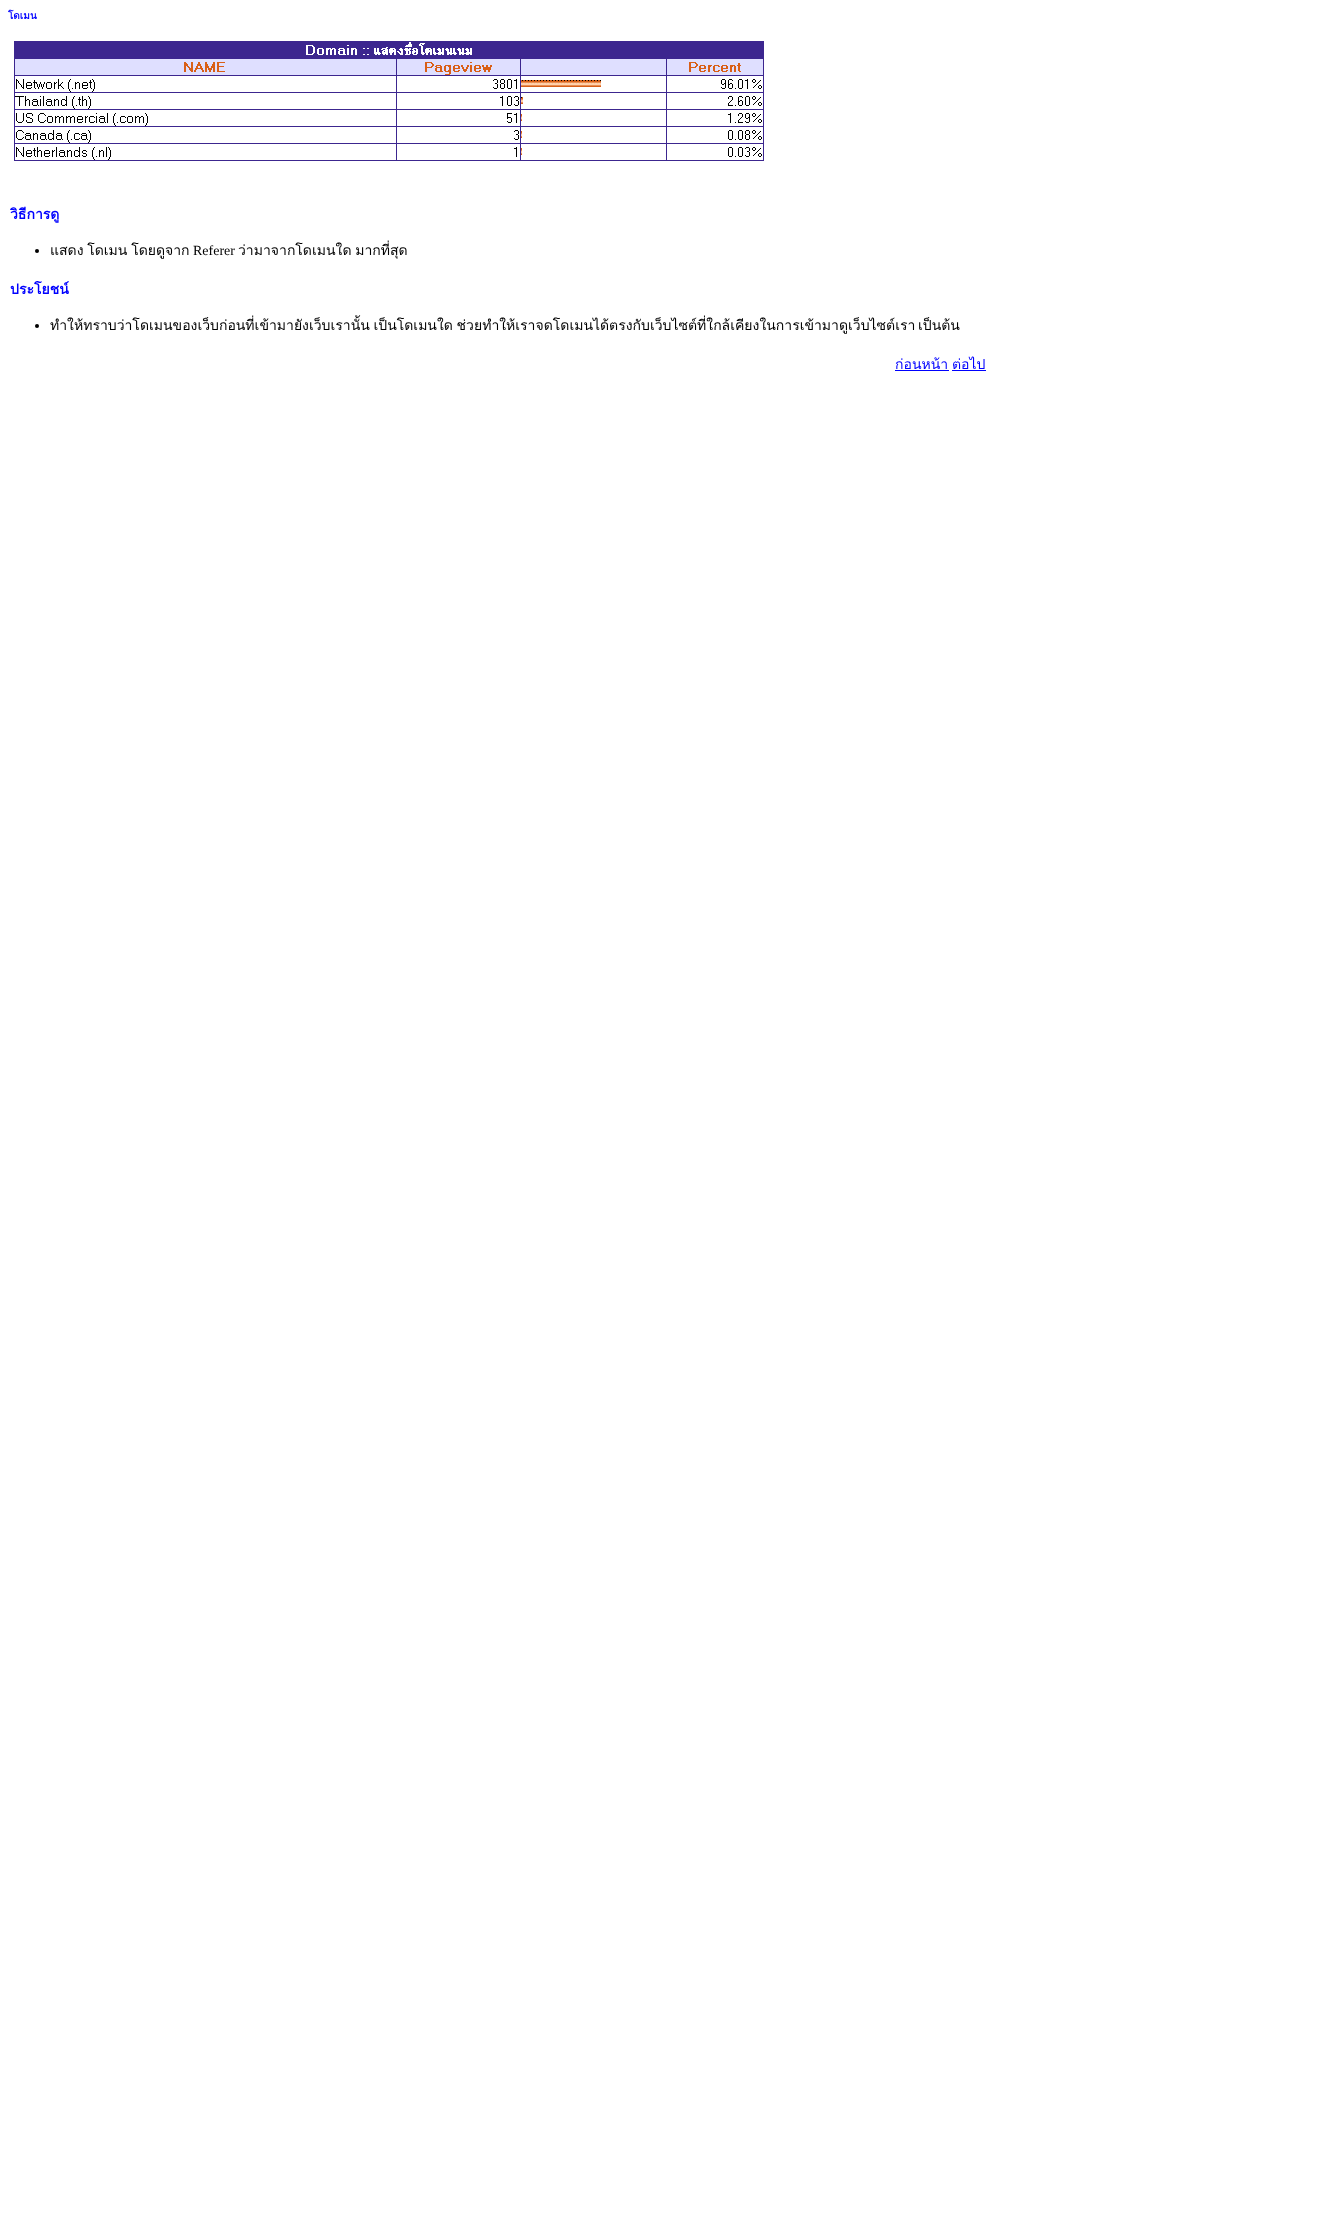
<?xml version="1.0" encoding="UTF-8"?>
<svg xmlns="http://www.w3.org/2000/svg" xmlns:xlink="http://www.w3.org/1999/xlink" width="1322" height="2215">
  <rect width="100%" height="100%" fill="#ffffff" />
  <image x="14" y="41" width="750" height="120" xlink:href="image1.png" />
  <circle cx="37" cy="251" r="2" fill="#000000" />
  <circle cx="37" cy="326" r="2" fill="#000000" />
  <rect x="895" y="370" width="54" height="1" fill="#0000ff" />
  <rect x="952" y="370" width="34" height="1" fill="#0000ff" />
  <text x="8" y="19" style="font-family: Loma; font-size: 10px; font-weight: bold; fill: #0000ff">โดเมน</text>
  <text x="10" y="219" style="font-family: Loma; font-size: 14px; font-weight: bold; fill: #0000ff">วิธีการดู</text>
  <text x="50" y="255" word-spacing="-1" style="font-family: Loma; font-size: 14px; fill: #000000">แสดง โดเมน โดยดูจาก</text>
  <text x="193" y="255" style="font-family: Liberation Serif; font-size: 14px; fill: #000000">Referer</text>
  <text x="238" y="255" word-spacing="-1" style="font-family: Loma; font-size: 14px; fill: #000000">ว่ามาจากโดเมนใด มากที่สุด</text>
  <text x="10" y="294" style="font-family: Loma; font-size: 14px; font-weight: bold; fill: #0000ff">ประโยชน์</text>
  <text x="50" y="330" word-spacing="-1" style="font-family: Loma; font-size: 14px; fill: #000000">ทำให้ทราบว่าโดเมนของเว็บก่อนที่เข้ามายังเว็บเรานั้น เป็นโดเมนใด ช่วยทำให้เราจดโดเมนได้ตรงกับเว็บไซต์ที่ใกล้เคียงในการเข้ามาดูเว็บไซต์เรา</text>
  <text x="918" y="330" style="font-family: Loma; font-size: 14px; fill: #000000">เป็นต้น</text>
  <text x="895" y="369" style="font-family: Loma; font-size: 14px; fill: #0000ff">ก่อนหน้า</text>
  <text x="952" y="369" style="font-family: Loma; font-size: 14px; fill: #0000ff">ต่อไป</text>
</svg>
